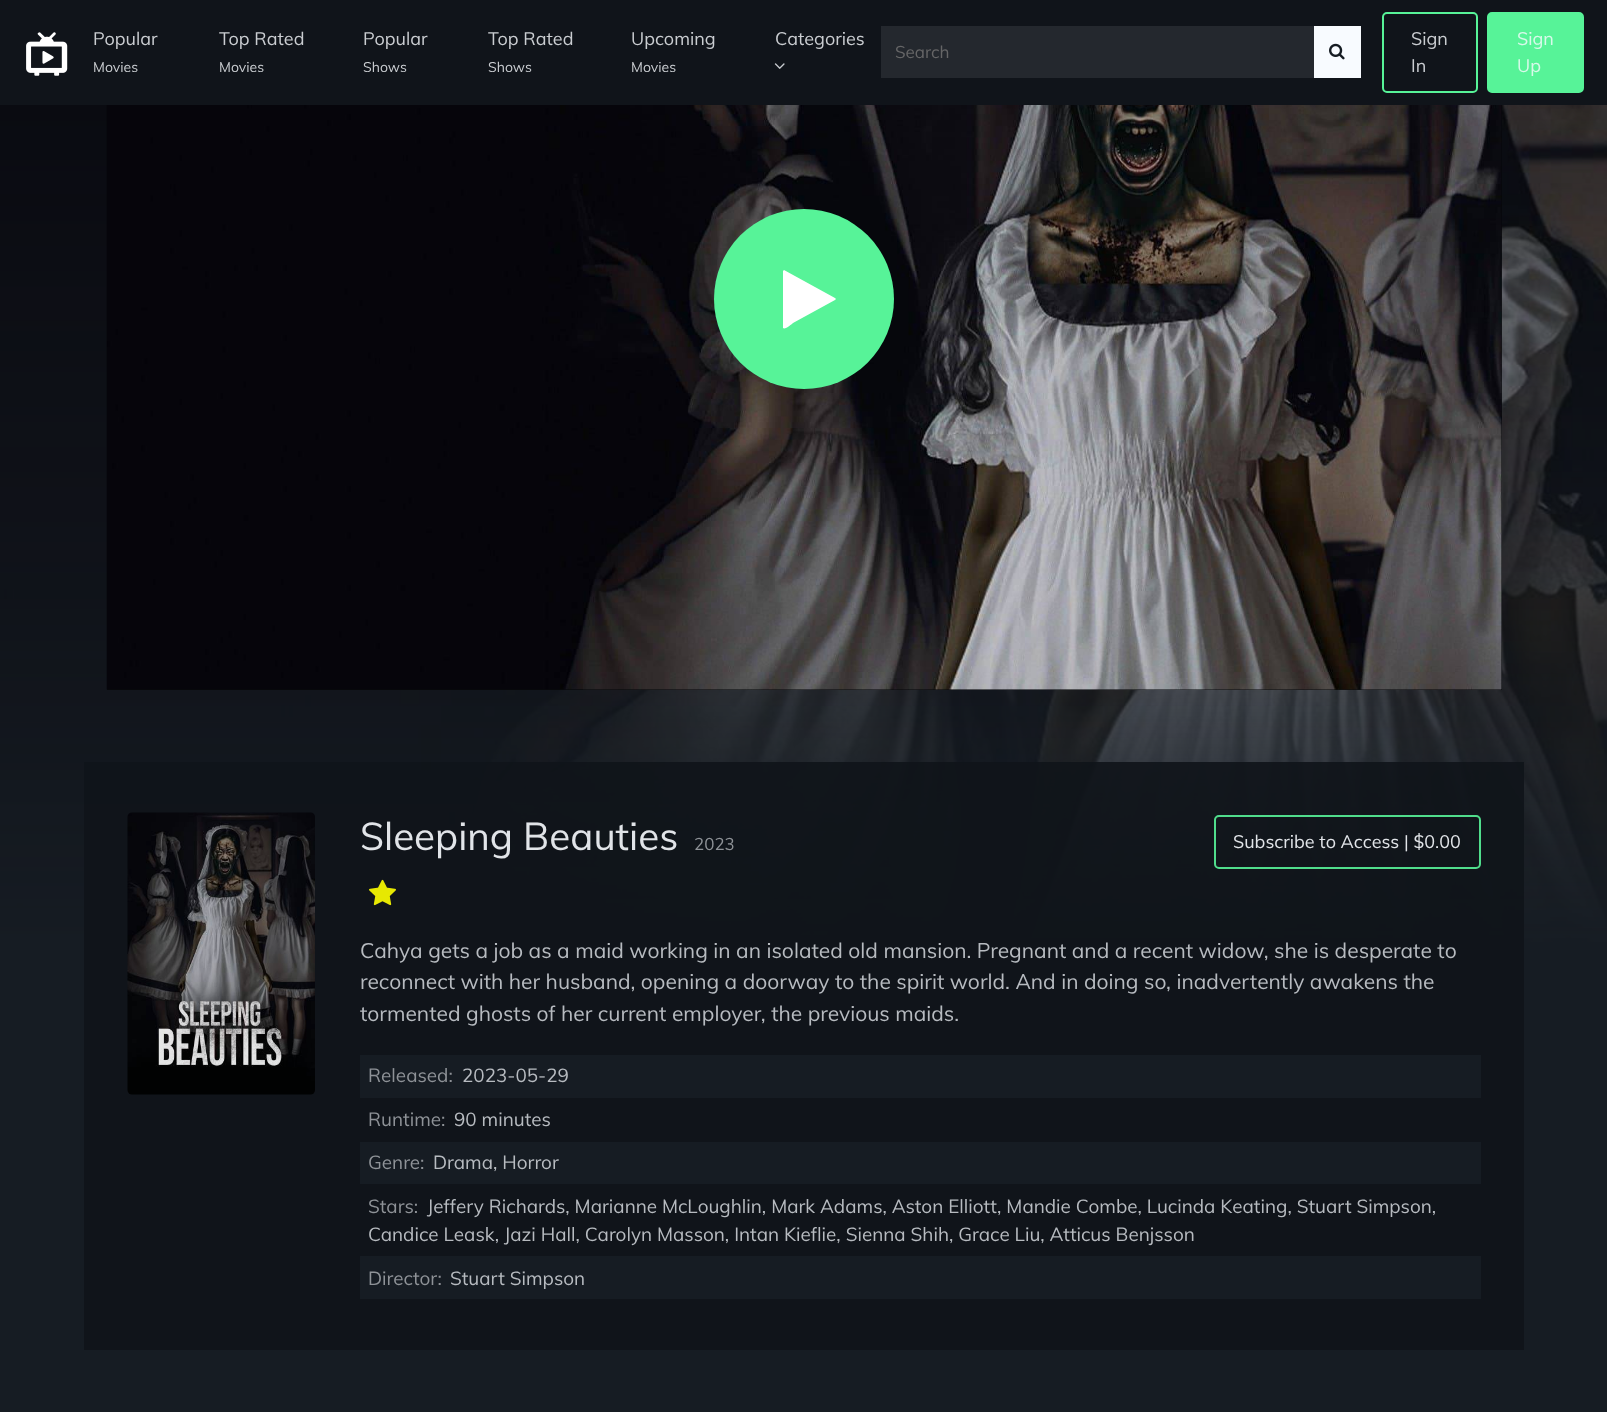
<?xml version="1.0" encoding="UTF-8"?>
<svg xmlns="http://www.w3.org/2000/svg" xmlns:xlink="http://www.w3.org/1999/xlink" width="1607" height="1412">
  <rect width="100%" height="100%" fill="#161c23" />
  <rect width="1607" height="105" fill="#10141a" />
  <image x="26" y="32" width="42" height="44" xlink:href="image1.png" />
  <image x="774" y="63" width="11" height="6" xlink:href="image2.png" />
  <rect x="881" y="26" width="433" height="52" fill="#24282e" />
  <rect x="1314" y="26" width="47" height="52" fill="#f8fbff" />
  <image x="1329" y="43" width="16" height="17" xlink:href="image3.png" />
  <rect x="1383" y="13" width="94" height="79" rx="4" fill="none" stroke="#57f398" stroke-width="2" />
  <rect x="1488" y="13" width="95" height="79" rx="4" fill="#57f398" stroke="#57f398" stroke-width="2" />
  <image x="0" y="105" width="1607" height="841" xlink:href="image4.png" />
  <rect x="107" y="105" width="1395" height="585" fill="#06080a" fill-opacity="0.8" />
  <image x="106" y="105" width="1396" height="585" xlink:href="image5.png" />
  <image x="583" y="105" width="919" height="585" xlink:href="image6.png" />
  <circle cx="804" cy="299" r="90" fill="#57f398" />
  <path d="M 835 300 l -42 23 c -1 1 -8 7 -10 5 v -57 l 1 -1 l 51 28 l 1 1 z" fill="#ffffff" />
  <rect x="84" y="762" width="1440" height="588" fill="#10141a" fill-opacity="0.9" />
  <image x="127" y="812" width="188" height="283" xlink:href="image7.png" />
  <rect x="1215" y="816" width="265" height="52" rx="4" fill="none" stroke="#50dd8c" stroke-width="2" />
  <image x="369" y="879" width="27" height="27" xlink:href="image8.png" />
  <rect x="360" y="1055" width="1121" height="43" fill="#161c23" />
  <rect x="360" y="1142" width="1121" height="42" fill="#161c23" />
  <rect x="360" y="1256" width="1121" height="43" fill="#161c23" />
  <text x="93" y="45" style="font-family: Muli; font-size: 18px; fill: #cacdd1">Popular</text>
  <text x="93" y="72" style="font-family: Muli; font-size: 14px; fill: #cacdd1">Movies</text>
  <text x="219" y="45" style="font-family: Muli; font-size: 18px; fill: #cacdd1">Top Rated</text>
  <text x="219" y="72" style="font-family: Muli; font-size: 14px; fill: #cacdd1">Movies</text>
  <text x="363" y="45" style="font-family: Muli; font-size: 18px; fill: #cacdd1">Popular</text>
  <text x="363" y="72" style="font-family: Muli; font-size: 14px; fill: #cacdd1">Shows</text>
  <text x="488" y="45" style="font-family: Muli; font-size: 18px; fill: #cacdd1">Top Rated</text>
  <text x="488" y="72" style="font-family: Muli; font-size: 14px; fill: #cacdd1">Shows</text>
  <text x="631" y="45" style="font-family: Muli; font-size: 18px; fill: #cacdd1">Upcoming</text>
  <text x="631" y="72" style="font-family: Muli; font-size: 14px; fill: #cacdd1">Movies</text>
  <text x="775" y="45" style="font-family: Muli; font-size: 18px; fill: #cacdd1">Categories</text>
  <text x="895" y="58" style="font-family: Muli; font-size: 17px; fill: #666667">Search</text>
  <text x="1411" y="45" style="font-family: Muli; font-size: 18px; fill: #cacdd1">Sign</text>
  <text x="1411" y="72" style="font-family: Muli; font-size: 18px; fill: #cacdd1">In</text>
  <text x="1517" y="45" style="font-family: Muli; font-size: 18px; fill: #d8f9ea">Sign</text>
  <text x="1517" y="72" style="font-family: Muli; font-size: 18px; fill: #d8f9ea">Up</text>
  <text x="360" y="850" style="font-family: Muli; font-size: 38.5px; fill: #e1e4e8">Sleeping Beauties</text>
  <text x="694" y="850" style="font-family: Muli; font-size: 17px; fill: #8e9297">2023</text>
  <text x="1233" y="848" style="font-family: Muli; font-size: 18px; fill: #e1e4e8">Subscribe to Access | $0.00</text>
  <text x="360" y="958" style="font-family: Muli; font-size: 21px; fill: #b7bbc0">Cahya gets a job as a maid working in an isolated old mansion. Pregnant and a recent widow, she is desperate to</text>
  <text x="360" y="989" style="font-family: Muli; font-size: 21px; fill: #b7bbc0">reconnect with her husband, opening a doorway to the spirit world. And in doing so, inadvertently awakens the</text>
  <text x="360" y="1021" style="font-family: Muli; font-size: 21px; fill: #b7bbc0">tormented ghosts of her current employer, the previous maids.</text>
  <text x="368" y="1082" style="font-family: Muli; font-size: 18.9px; fill: #8e9297">Released:</text>
  <text x="462" y="1082" style="font-family: Muli; font-size: 18.9px; fill: #b7bbc0">2023-05-29</text>
  <text x="368" y="1126" style="font-family: Muli; font-size: 18.9px; fill: #8e9297">Runtime:</text>
  <text x="454" y="1126" style="font-family: Muli; font-size: 18.9px; fill: #b7bbc0">90 minutes</text>
  <text x="368" y="1169" style="font-family: Muli; font-size: 18.9px; fill: #8e9297">Genre:</text>
  <text x="433" y="1169" style="font-family: Muli; font-size: 18.9px; fill: #b7bbc0">Drama, Horror</text>
  <text x="368" y="1213" style="font-family: Muli; font-size: 18.9px; fill: #8e9297">Stars:</text>
  <text x="427" y="1213" style="font-family: Muli; font-size: 18.9px; fill: #b7bbc0">Jeffery Richards, Marianne McLoughlin, Mark Adams, Aston Elliott, Mandie Combe, Lucinda Keating, Stuart Simpson,</text>
  <text x="368" y="1241" style="font-family: Muli; font-size: 18.9px; fill: #b7bbc0">Candice Leask, Jazi Hall, Carolyn Masson, Intan Kieflie, Sienna Shih, Grace Liu, Atticus Benjsson</text>
  <text x="368" y="1285" style="font-family: Muli; font-size: 18.9px; fill: #8e9297">Director:</text>
  <text x="450" y="1285" style="font-family: Muli; font-size: 18.9px; fill: #b7bbc0">Stuart Simpson</text>
</svg>
